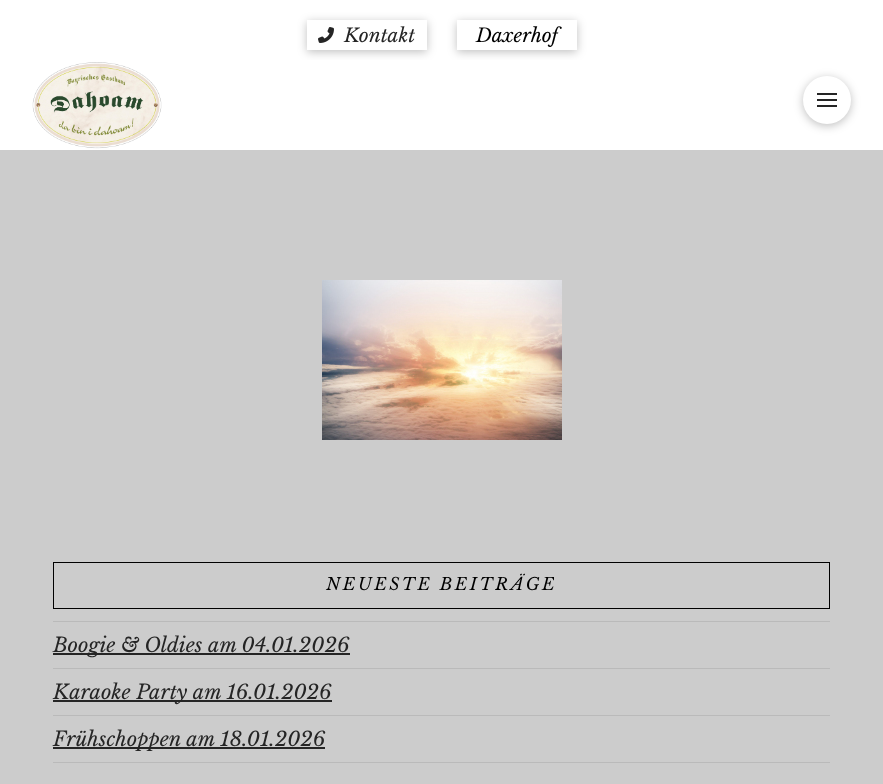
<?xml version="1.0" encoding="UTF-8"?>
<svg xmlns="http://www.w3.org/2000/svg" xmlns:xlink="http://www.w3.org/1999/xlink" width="883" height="784">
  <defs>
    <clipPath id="clip1"><path d="M 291 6 h 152 v 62 h -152 z m 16 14 h 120 v 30 h -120 z" clip-rule="evenodd" /></clipPath>
    <clipPath id="clip2"><path d="M 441 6 h 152 v 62 h -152 z m 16 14 h 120 v 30 h -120 z" clip-rule="evenodd" /></clipPath>
  </defs>
  <rect width="100%" height="100%" fill="#cccccc" />
  <rect width="883" height="60" fill="#ffffff" />
  <g clip-path="url(#clip1)">
    <rect x="307" y="22" width="120" height="30" fill="#000000" fill-opacity="0.25" filter="blur(5px)" />
  </g>
  <image x="318" y="27" width="16" height="16" xlink:href="image1.png" />
  <g clip-path="url(#clip2)">
    <rect x="457" y="22" width="120" height="30" fill="#000000" fill-opacity="0.25" filter="blur(5px)" />
  </g>
  <rect y="60" width="883" height="90" fill="#ffffff" />
  <image x="32" y="62" width="130" height="87" xlink:href="image2.png" />
  <rect x="803" y="78" width="48" height="48" rx="24" fill="#000000" fill-opacity="0.25" filter="blur(5px)" />
  <circle cx="827" cy="100" r="24" fill="#ffffff" />
  <rect x="817" y="93" width="20" height="2" fill="#252525" />
  <rect x="817" y="99" width="20" height="2" fill="#252525" />
  <rect x="817" y="105" width="20" height="2" fill="#252525" />
  <image x="322" y="280" width="240" height="160" xlink:href="image3.png" />
  <rect x="53.5" y="562.5" width="776" height="46" fill="none" stroke="#000000" />
  <rect x="53" y="621" width="777" height="1" fill="#bababa" />
  <rect x="53" y="653" width="297" height="2" fill="#252525" />
  <rect x="53" y="668" width="777" height="1" fill="#bababa" />
  <rect x="53" y="700" width="279" height="2" fill="#252525" />
  <rect x="53" y="715" width="777" height="1" fill="#bababa" />
  <rect x="53" y="747" width="272" height="2" fill="#252525" />
  <rect x="53" y="762" width="777" height="1" fill="#bababa" />
  <text x="344" y="42" style="font-family: Libre Baskerville; font-size: 19px; font-style: italic; fill: #252525">Kontakt</text>
  <text x="476" y="42" style="font-family: Libre Baskerville; font-size: 19px; font-style: italic; fill: #000000">Daxerhof</text>
  <text x="326" y="590" style="font-family: Libre Baskerville; font-size: 17px; font-style: italic; letter-spacing: 2.5px; fill: #000000">NEUESTE BEITRÄGE</text>
  <text x="53" y="652" style="font-family: Libre Baskerville; font-size: 20px; font-style: italic; fill: #252525">Boogie &amp; Oldies am 04.01.2026</text>
  <text x="53" y="699" style="font-family: Libre Baskerville; font-size: 20px; font-style: italic; fill: #252525">Karaoke Party am 16.01.2026</text>
  <text x="53" y="746" style="font-family: Libre Baskerville; font-size: 20px; font-style: italic; fill: #252525">Frühschoppen am 18.01.2026</text>
</svg>
